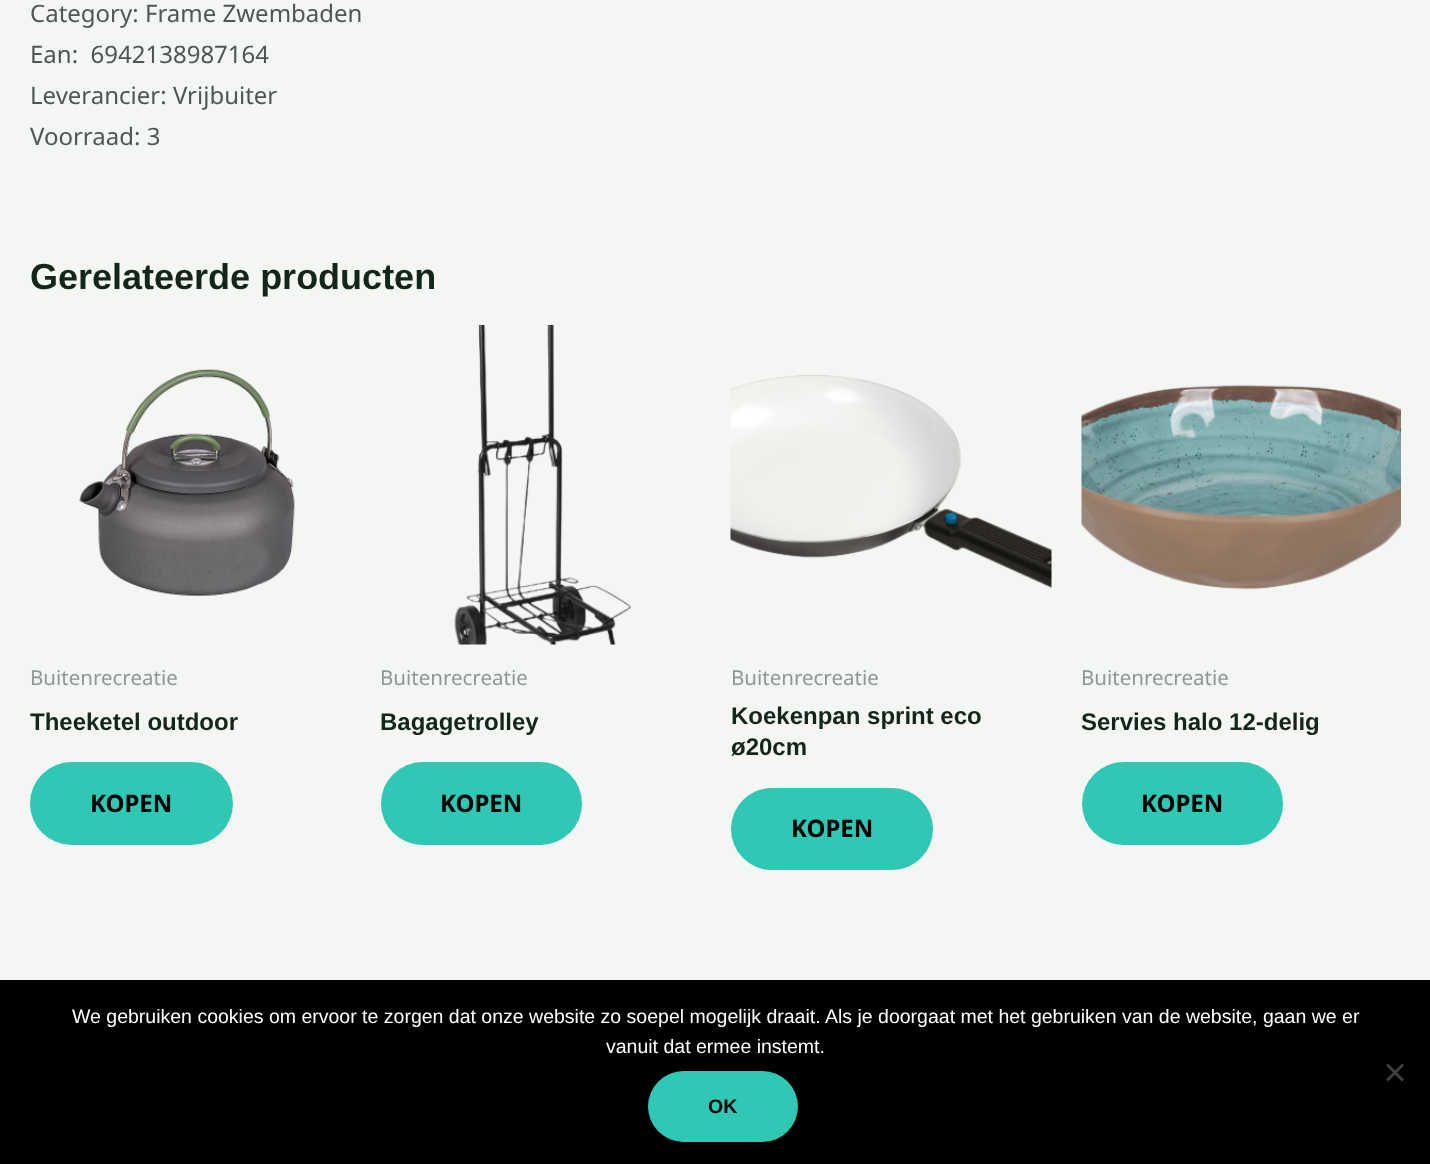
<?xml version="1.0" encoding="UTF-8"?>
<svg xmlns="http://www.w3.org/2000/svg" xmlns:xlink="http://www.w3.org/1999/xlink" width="1430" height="1164">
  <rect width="100%" height="100%" fill="#f3f6f3" />
  <image x="79" y="369" width="216" height="228" xlink:href="image1.png" />
  <rect x="30" y="762" width="203" height="83" rx="41.5" fill="#30c7b5" />
  <image x="454" y="325" width="178" height="320" xlink:href="image2.png" />
  <rect x="381" y="762" width="201" height="83" rx="41.5" fill="#30c7b5" />
  <image x="730" y="375" width="322" height="214" xlink:href="image3.png" />
  <rect x="731" y="788" width="202" height="82" rx="41" fill="#30c7b5" />
  <image x="1081" y="384" width="320" height="206" xlink:href="image4.png" />
  <rect x="1082" y="762" width="201" height="83" rx="41.5" fill="#30c7b5" />
  <rect y="980" width="1430" height="184" fill="#000000" />
  <path d="M 1402 1063.5 l 2 2 l -16 16 l -2 -2 z" fill="#404040" />
  <path d="M 1386 1065.5 l 2 -2 l 16 16 l -2 2 z" fill="#404040" />
  <rect x="648" y="1071" width="150" height="71" rx="35.5" fill="#30c7b5" />
  <text x="30" y="22" style="font-family: Noto Sans; font-size: 24px; fill: #4f5655">Category: Frame Zwembaden</text>
  <text x="30" y="63" style="font-family: Noto Sans; font-size: 24px; fill: #4f5655" xml:space="preserve">Ean:  6942138987164</text>
  <text x="30" y="104" style="font-family: Noto Sans; font-size: 24px; fill: #4f5655">Leverancier: Vrijbuiter</text>
  <text x="30" y="145" style="font-family: Noto Sans; font-size: 24px; fill: #4f5655">Voorraad: 3</text>
  <text x="30" y="289" style="font-family: Liberation Sans; font-size: 36px; font-weight: bold; fill: #14261c">Gerelateerde producten</text>
  <text x="30" y="685" style="font-family: Noto Sans; font-size: 20.5px; fill: #919694">Buitenrecreatie</text>
  <text x="30" y="730" style="font-family: Liberation Sans; font-size: 24px; font-weight: bold; fill: #14261c">Theeketel outdoor</text>
  <text x="90" y="812" style="font-family: Noto Sans; font-size: 24px; font-weight: bold; fill: #000000">KOPEN</text>
  <text x="380" y="685" style="font-family: Noto Sans; font-size: 20.5px; fill: #919694">Buitenrecreatie</text>
  <text x="380" y="730" style="font-family: Liberation Sans; font-size: 24px; font-weight: bold; fill: #14261c">Bagagetrolley</text>
  <text x="440" y="812" style="font-family: Noto Sans; font-size: 24px; font-weight: bold; fill: #000000">KOPEN</text>
  <text x="731" y="685" style="font-family: Noto Sans; font-size: 20.5px; fill: #919694">Buitenrecreatie</text>
  <text x="731" y="724" style="font-family: Liberation Sans; font-size: 24px; font-weight: bold; fill: #14261c">Koekenpan sprint eco</text>
  <text x="731" y="755" style="font-family: Liberation Sans; font-size: 24px; font-weight: bold; fill: #14261c">ø20cm</text>
  <text x="791" y="837" style="font-family: Noto Sans; font-size: 24px; font-weight: bold; fill: #000000">KOPEN</text>
  <text x="1081" y="685" style="font-family: Noto Sans; font-size: 20.5px; fill: #919694">Buitenrecreatie</text>
  <text x="1081" y="730" style="font-family: Liberation Sans; font-size: 24px; font-weight: bold; fill: #14261c">Servies halo 12-delig</text>
  <text x="1141" y="812" style="font-family: Noto Sans; font-size: 24px; font-weight: bold; fill: #000000">KOPEN</text>
  <text x="72" y="1023" style="font-family: Liberation Sans; font-size: 19.5px; fill: #ffffff">We gebruiken cookies om ervoor te zorgen dat onze website zo soepel mogelijk draait. Als je doorgaat met het gebruiken van de website, gaan we er</text>
  <text x="606" y="1053" style="font-family: Liberation Sans; font-size: 19.5px; fill: #ffffff">vanuit dat ermee instemt.</text>
  <text x="708" y="1113" style="font-family: Liberation Sans; font-size: 19.5px; font-weight: bold; fill: #000000">OK</text>
</svg>
